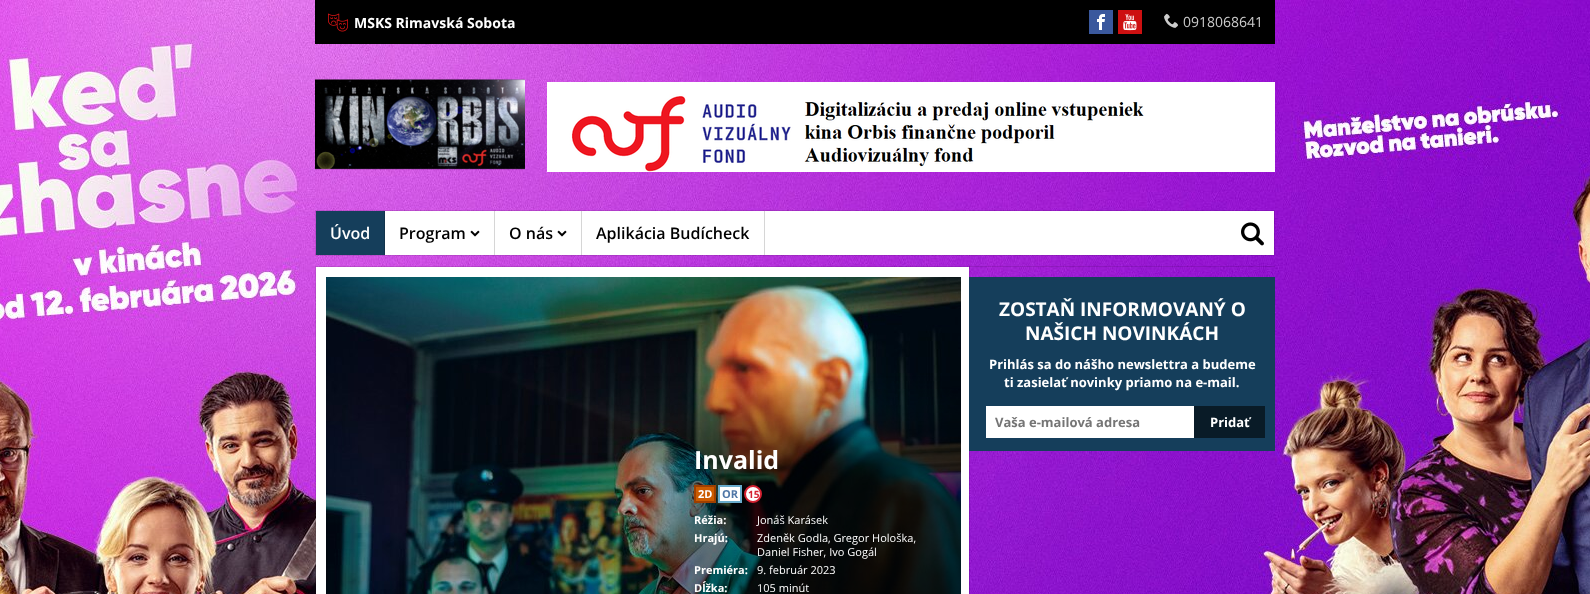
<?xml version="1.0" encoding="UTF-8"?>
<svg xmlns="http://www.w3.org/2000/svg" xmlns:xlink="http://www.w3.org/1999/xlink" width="1590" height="594">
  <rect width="100%" height="100%" fill="#ffffff" />
  <image x="0" y="0" width="1590" height="594" xlink:href="image1.png" />
  <rect x="315" width="960" height="44" fill="#000000" />
  <image x="328" y="13" width="20" height="19" xlink:href="image2.png" />
  <rect x="1089" y="10" width="24" height="24" fill="#3a589d" />
  <image x="1097" y="14" width="8" height="16" xlink:href="image3.png" />
  <rect x="1118" y="10" width="24" height="24" fill="#cd1011" />
  <image x="1123" y="14" width="14" height="17" xlink:href="image4.png" />
  <image x="1164" y="13" width="14" height="15" xlink:href="image5.png" />
  <image x="315" y="79" width="210" height="91" xlink:href="image6.png" />
  <image x="547" y="82" width="728" height="90" xlink:href="image7.png" />
  <rect x="315.5" y="210.5" width="959" height="45" fill="none" stroke="#000000" stroke-opacity="0.1" />
  <rect x="385" y="211" width="889" height="44" fill="#ffffff" />
  <rect x="316" y="211" width="68" height="44" fill="#153e5b" />
  <rect x="384" y="211" width="1" height="44" fill="#12344c" />
  <rect x="494" y="211" width="1" height="44" fill="#d6d6d6" />
  <image x="470" y="230" width="10" height="7" xlink:href="image8.png" />
  <rect x="581" y="211" width="1" height="44" fill="#d6d6d6" />
  <image x="557" y="230" width="10" height="7" xlink:href="image8.png" />
  <rect x="764" y="211" width="1" height="44" fill="#d6d6d6" />
  <image x="1241" y="222" width="23" height="24" xlink:href="image9.png" />
  <rect x="969" y="266" width="306" height="1" fill="#000000" fill-opacity="0.1" />
  <rect x="315.5" y="266.5" width="654" height="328" fill="none" stroke="#000000" stroke-opacity="0.1" />
  <rect x="969" y="277" width="306" height="174" fill="#153e5b" />
  <rect x="986" y="406" width="208" height="32" fill="#ffffff" />
  <rect x="1194" y="406" width="71" height="32" fill="#091b27" />
  <rect x="316" y="267" width="653" height="327" fill="#ffffff" />
  <image x="326" y="277" width="635" height="317" xlink:href="image10.png" />
  <image x="614" y="376" width="347" height="218" xlink:href="image11.png" />
  <rect x="695" y="486" width="20" height="16" fill="#cc5b00" stroke="#9e3f00" stroke-width="2" />
  <rect x="719" y="486" width="22" height="16" fill="#ffffff" stroke="#69abcb" stroke-width="2" />
  <circle cx="753" cy="494" r="8" fill="#ffffff" stroke="#d52232" stroke-width="2" />
  <text x="354" y="28" style="font-family: Open Sans; font-size: 14px; font-weight: bold; fill: #ffffff">MSKS Rimavská Sobota</text>
  <text x="1183" y="27" style="font-family: Open Sans; font-size: 14px; fill: #cccccc">0918068641</text>
  <text x="330" y="239" style="font-family: Open Sans; font-size: 16px; font-weight: 600; fill: #ffffff">Úvod</text>
  <text x="399" y="239" style="font-family: Open Sans; font-size: 16px; font-weight: 600; fill: #000000">Program</text>
  <text x="509" y="239" style="font-family: Open Sans; font-size: 16px; font-weight: 600; fill: #000000">O nás</text>
  <text x="596" y="239" style="font-family: Open Sans; font-size: 16px; font-weight: 600; fill: #000000">Aplikácia Budícheck</text>
  <text x="999" y="316" style="font-family: Open Sans; font-size: 19px; font-weight: bold; fill: #ffffff">ZOSTAŇ INFORMOVANÝ O</text>
  <text x="1025" y="340" style="font-family: Open Sans; font-size: 19px; font-weight: bold; fill: #ffffff">NAŠICH NOVINKÁCH</text>
  <text x="989" y="369" style="font-family: Open Sans; font-size: 13px; font-weight: bold; fill: #ffffff">Prihlás sa do nášho newslettra a budeme</text>
  <text x="1004" y="387" style="font-family: Open Sans; font-size: 13px; font-weight: bold; fill: #ffffff">ti zasielať novinky priamo na e-mail.</text>
  <text x="995" y="427" style="font-family: Open Sans; font-size: 13px; font-weight: bold; fill: #757575">Vaša e-mailová adresa</text>
  <text x="1210" y="427" style="font-family: Open Sans; font-size: 13px; font-weight: bold; fill: #ffffff">Pridať</text>
  <text x="694" y="469" style="font-family: Open Sans; font-size: 25px; font-weight: bold; fill: #ffffff">Invalid</text>
  <text x="698" y="498" style="font-family: Open Sans; font-size: 11px; font-weight: bold; fill: #ffffff">2D</text>
  <text x="722" y="498" style="font-family: Open Sans; font-size: 11px; font-weight: bold; fill: #5077a7">OR</text>
  <text x="748" y="498" style="font-family: Open Sans; font-size: 10px; font-weight: bold; fill: #d52232">15</text>
  <text x="694" y="524" style="font-family: Open Sans; font-size: 11px; font-weight: bold; fill: #ffffff">Réžia:</text>
  <text x="757" y="524" style="font-family: Open Sans; font-size: 11px; fill: #ffffff">Jonáš Karásek</text>
  <text x="694" y="542" style="font-family: Open Sans; font-size: 11px; font-weight: bold; fill: #ffffff">Hrajú:</text>
  <text x="757" y="542" style="font-family: Open Sans; font-size: 11px; fill: #ffffff">Zdeněk Godla, Gregor Hološka,</text>
  <text x="757" y="556" style="font-family: Open Sans; font-size: 11px; fill: #ffffff">Daniel Fisher, Ivo Gogál</text>
  <text x="694" y="574" style="font-family: Open Sans; font-size: 11px; font-weight: bold; fill: #ffffff">Premiéra:</text>
  <text x="757" y="574" style="font-family: Open Sans; font-size: 11px; fill: #ffffff">9. február 2023</text>
  <text x="694" y="592" style="font-family: Open Sans; font-size: 11px; font-weight: bold; fill: #ffffff">Dĺžka:</text>
  <text x="757" y="592" style="font-family: Open Sans; font-size: 11px; fill: #ffffff">105 minút</text>
</svg>
